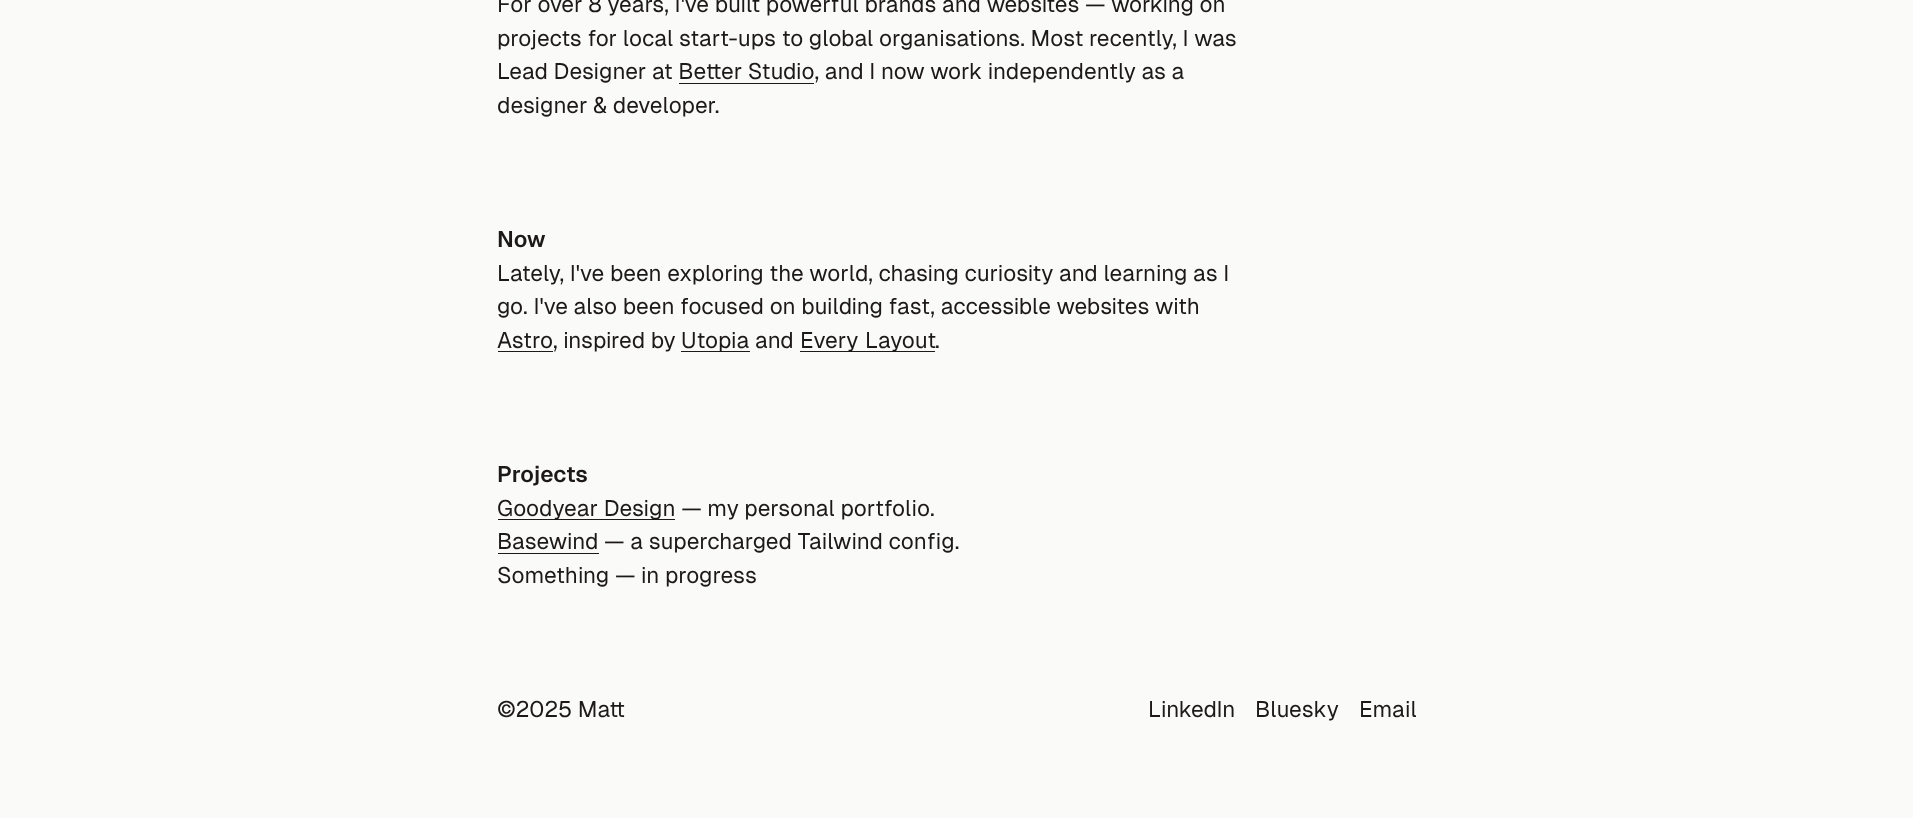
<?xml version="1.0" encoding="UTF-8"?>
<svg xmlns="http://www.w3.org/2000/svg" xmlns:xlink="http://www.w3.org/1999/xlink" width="1913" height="818">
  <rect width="100%" height="100%" fill="#fafaf9" />
  <rect x="679" y="83" width="135" height="1" fill="#1c1917" />
  <rect x="498" y="351" width="55" height="1" fill="#1c1917" />
  <rect x="681" y="351" width="69" height="1" fill="#1c1917" />
  <rect x="800" y="351" width="135" height="1" fill="#1c1917" />
  <rect x="498" y="519" width="177" height="1" fill="#1c1917" />
  <rect x="498" y="553" width="101" height="1" fill="#1c1917" />
  <text x="497" y="12" style="font-family: Geist; font-size: 22.5px; fill: #1c1917">For over 8 years, I've built powerful brands and websites — working on</text>
  <text x="497" y="46" style="font-family: Geist; font-size: 22.5px; fill: #1c1917">projects for local start-ups to global organisations. Most recently, I was</text>
  <text x="497" y="79" style="font-family: Geist; font-size: 22.5px; fill: #1c1917">Lead Designer at Better Studio, and I now work independently as a</text>
  <text x="497" y="113" style="font-family: Geist; font-size: 22.5px; fill: #1c1917">designer &amp; developer.</text>
  <text x="497" y="247" style="font-family: Geist; font-size: 22.5px; font-weight: 600; fill: #1c1917">Now</text>
  <text x="497" y="281" style="font-family: Geist; font-size: 22.5px; fill: #1c1917">Lately, I've been exploring the world, chasing curiosity and learning as I</text>
  <text x="497" y="314" style="font-family: Geist; font-size: 22.5px; fill: #1c1917">go. I've also been focused on building fast, accessible websites with</text>
  <text x="497" y="348" style="font-family: Geist; font-size: 22.5px; fill: #1c1917">Astro, inspired by</text>
  <text x="681" y="348" style="font-family: Geist; font-size: 22.5px; fill: #1c1917">Utopia and</text>
  <text x="800" y="348" word-spacing="1" style="font-family: Geist; font-size: 22.5px; fill: #1c1917">Every Layout</text>
  <text x="935" y="348" style="font-family: Geist; font-size: 22.5px; fill: #1c1917">.</text>
  <text x="497" y="482" style="font-family: Geist; font-size: 22.5px; font-weight: 600; fill: #1c1917">Projects</text>
  <text x="497" y="516" style="font-family: Geist; font-size: 22.5px; fill: #1c1917">Goodyear Design — my personal portfolio.</text>
  <text x="497" y="549" style="font-family: Geist; font-size: 22.5px; fill: #1c1917">Basewind — a supercharged Tailwind config.</text>
  <text x="497" y="583" style="font-family: Geist; font-size: 22.5px; fill: #1c1917">Something — in progress</text>
  <text x="497" y="717" style="font-family: Geist; font-size: 22.5px; fill: #1c1917">©2025 Matt</text>
  <text x="1148" y="717" style="font-family: Geist; font-size: 22.5px; fill: #1c1917">LinkedIn</text>
  <text x="1255" y="717" style="font-family: Geist; font-size: 22.5px; fill: #1c1917">Bluesky</text>
  <text x="1359" y="717" style="font-family: Geist; font-size: 22.5px; fill: #1c1917">Email</text>
</svg>
